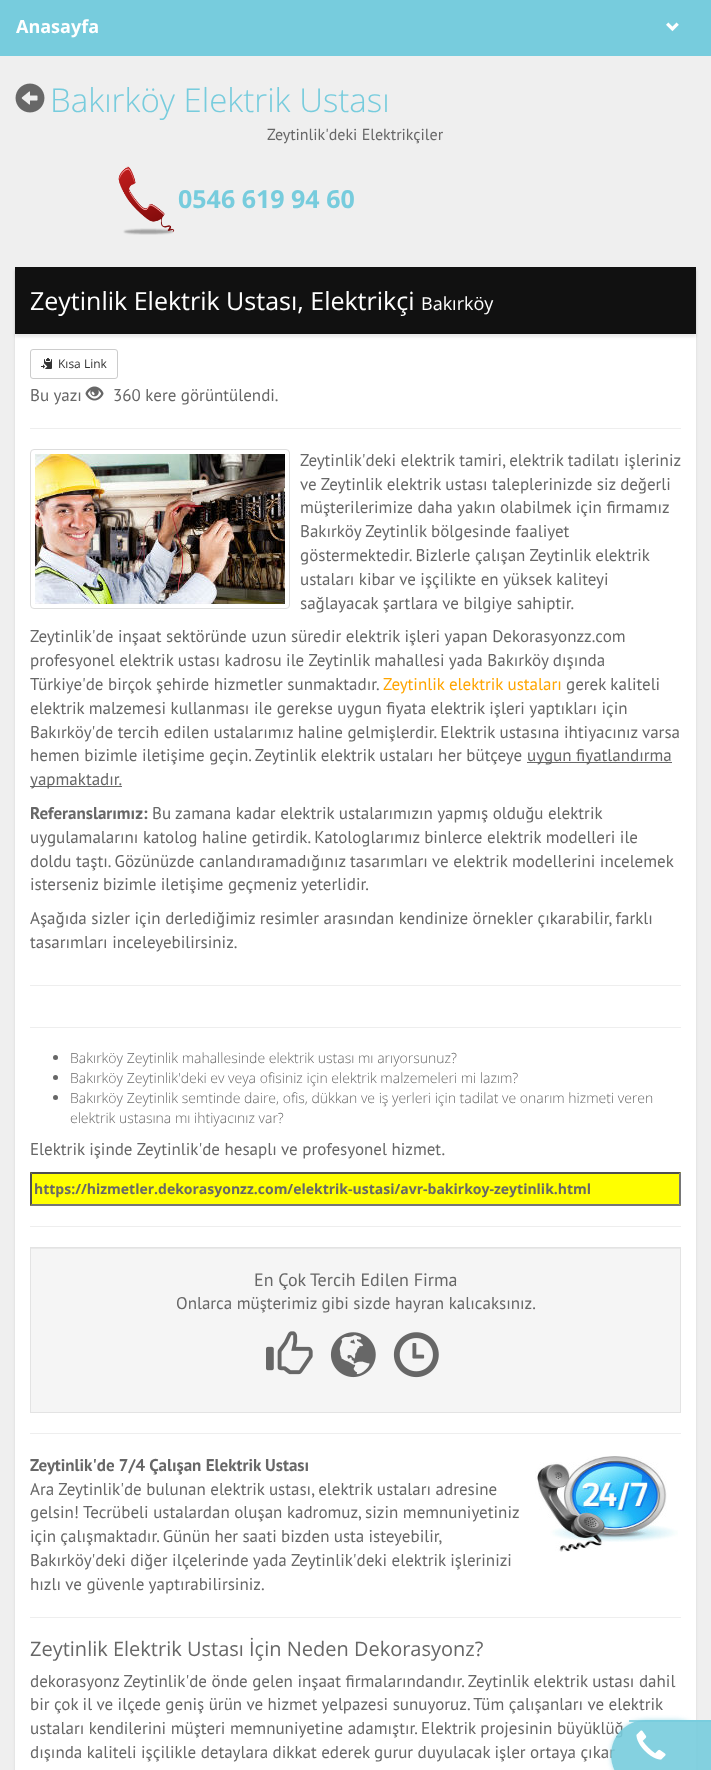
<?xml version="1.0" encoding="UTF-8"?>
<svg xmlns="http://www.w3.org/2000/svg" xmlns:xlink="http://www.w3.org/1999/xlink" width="711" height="1770">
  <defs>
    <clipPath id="clip1"><path d="M 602 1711 h 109 v 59 h -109 z m 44 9 h 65 v 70 h -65 c -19.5 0 -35 -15.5 -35 -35 c 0 -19.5 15.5 -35 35 -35 z" clip-rule="evenodd" /></clipPath>
  </defs>
  <rect width="100%" height="100%" fill="#efefef" />
  <rect width="711" height="56" fill="#77ccdd" />
  <image x="666" y="22" width="13" height="10" xlink:href="image1.png" />
  <image x="15" y="83" width="30" height="30" xlink:href="image2.png" />
  <image x="118" y="166" width="57" height="69" xlink:href="image3.png" />
  <rect x="15" y="270" width="681" height="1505" fill="#000000" fill-opacity="0.09" filter="blur(1.5px)" />
  <rect x="15" y="334" width="681" height="1436" fill="#ffffff" />
  <rect x="15" y="270" width="681" height="67" fill="#000000" fill-opacity="0.09" filter="blur(1.5px)" />
  <rect x="15" y="267" width="681" height="67" fill="#111111" />
  <rect x="30.5" y="349.5" width="87" height="29" rx="2.5" fill="none" stroke="#cccccc" />
  <image x="41" y="358" width="11" height="11" xlink:href="image4.png" />
  <image x="85" y="386" width="19" height="15" xlink:href="image5.png" />
  <rect x="30" y="428" width="651" height="1" fill="#eeeeee" />
  <rect x="30.5" y="449.5" width="259" height="159" rx="3.5" fill="none" stroke="#dddddd" />
  <image x="35" y="454" width="250" height="150" xlink:href="image6.png" />
  <rect x="527" y="762" width="145" height="1" fill="#676767" />
  <rect x="30" y="786" width="92" height="1" fill="#676767" />
  <rect x="30" y="985" width="651" height="1" fill="#eeeeee" />
  <rect x="30" y="1027" width="651" height="1" fill="#eeeeee" />
  <circle cx="55.5" cy="1057.5" r="2.5" fill="#676767" />
  <circle cx="55.5" cy="1077.5" r="2.5" fill="#676767" />
  <circle cx="55.5" cy="1097.5" r="2.5" fill="#676767" />
  <rect x="30" y="1172" width="651" height="34" fill="#ffff00" />
  <path d="M 30 1172 h 651 l -2 2 h -647 z" fill="#4f4f4f" />
  <path d="M 681 1172 v 34 l -2 -2 v -30 z" fill="#767676" />
  <path d="M 681 1206 h -651 l 2 -2 h 647 z" fill="#767676" />
  <path d="M 30 1206 v -34 l 2 2 v 30 z" fill="#4f4f4f" />
  <rect x="30" y="1226" width="651" height="1" fill="#eeeeee" />
  <rect x="31" y="1249" width="649" height="163" fill="#f5f5f5" />
  <rect x="31" y="1248" width="649" height="1" fill="#e9e9e9" />
  <rect x="30.5" y="1247.5" width="650" height="165" fill="none" stroke="#e3e3e3" />
  <image x="266" y="1331" width="47" height="44" xlink:href="image7.png" />
  <image x="330" y="1332" width="46" height="46" xlink:href="image8.png" />
  <image x="393" y="1332" width="46" height="46" xlink:href="image9.png" />
  <rect x="30" y="1433" width="651" height="1" fill="#eeeeee" />
  <image x="535" y="1456" width="143" height="96" xlink:href="image10.png" />
  <rect x="30" y="1617" width="651" height="1" fill="#eeeeee" />
  <g clip-path="url(#clip1)">
    <rect x="611" y="1720" width="100" height="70" rx="35" fill="#77ccdd" fill-opacity="0.6" filter="blur(2.5px)" />
  </g>
  <text x="16" y="33" style="font-family: Open Sans; font-size: 18px; font-weight: bold; fill: #ffffff">Anasayfa</text>
  <text x="50" y="112" style="font-family: Open Sans; font-size: 33px; font-weight: 300; fill: #77ccdd">Bakırköy Elektrik Ustası</text>
  <text x="267" y="140" style="font-family: PT Sans; font-size: 16px; fill: #676767">Zeytinlik'deki Elektrikçiler</text>
  <text x="178" y="208" style="font-family: Open Sans; font-size: 25px; font-weight: bold; fill: #77ccdd">0546 619 94 60</text>
  <text x="30" y="310" style="font-family: Open Sans; font-size: 25px; fill: #ffffff">Zeytinlik Elektrik Ustası, Elektrikçi</text>
  <text x="421" y="310" style="font-family: Open Sans; font-size: 18px; fill: #ffffff">Bakırköy</text>
  <text x="58" y="368" style="font-family: Open Sans; font-size: 12px; fill: #333333">Kısa Link</text>
  <text x="30" y="401" style="font-family: PT Sans; font-size: 17px; fill: #676767">Bu yazı</text>
  <text x="113" y="401" style="font-family: PT Sans; font-size: 17px; fill: #676767">360 kere görüntülendi.</text>
  <text x="300" y="466" style="font-family: PT Sans; font-size: 17px; fill: #676767">Zeytinlik'deki elektrik tamiri, elektrik tadilatı işleriniz</text>
  <text x="300" y="490" style="font-family: PT Sans; font-size: 17px; fill: #676767">ve Zeytinlik elektrik ustası taleplerinizde siz değerli</text>
  <text x="300" y="513" style="font-family: PT Sans; font-size: 17px; fill: #676767">müşterilerimize daha yakın olabilmek için firmamız</text>
  <text x="300" y="537" style="font-family: PT Sans; font-size: 17px; fill: #676767">Bakırköy Zeytinlik bölgesinde faaliyet</text>
  <text x="300" y="561" word-spacing="-0.1" style="font-family: PT Sans; font-size: 17px; fill: #676767">göstermektedir. Bizlerle çalışan Zeytinlik elektrik</text>
  <text x="300" y="585" style="font-family: PT Sans; font-size: 17px; fill: #676767">ustaları kibar ve işçilikte en yüksek kaliteyi</text>
  <text x="300" y="609" style="font-family: PT Sans; font-size: 17px; fill: #676767">sağlayacak şartlara ve bilgiye sahiptir.</text>
  <text x="30" y="642" style="font-family: PT Sans; font-size: 17px; fill: #676767">Zeytinlik'de inşaat sektöründe uzun süredir elektrik işleri yapan Dekorasyonzz.com</text>
  <text x="30" y="666" style="font-family: PT Sans; font-size: 17px; fill: #676767">profesyonel elektrik ustası kadrosu ile Zeytinlik mahallesi yada Bakırköy dışında</text>
  <text x="30" y="690" style="font-family: PT Sans; font-size: 17px; fill: #676767">Türkiye'de birçok şehirde hizmetler sunmaktadır.</text>
  <text x="383" y="690" style="font-family: PT Sans; font-size: 17px; fill: #ffa500">Zeytinlik elektrik ustaları</text>
  <text x="566" y="690" style="font-family: PT Sans; font-size: 17px; fill: #676767">gerek kaliteli</text>
  <text x="30" y="714" style="font-family: PT Sans; font-size: 17px; fill: #676767">elektrik malzemesi kullanması ile gerekse uygun fiyata elektrik işleri yaptıkları için</text>
  <text x="30" y="738" style="font-family: PT Sans; font-size: 17px; fill: #676767">Bakırköy'de tercih edilen ustalarımız haline gelmişlerdir. Elektrik ustasına ihtiyacınız varsa</text>
  <text x="30" y="761" style="font-family: PT Sans; font-size: 17px; fill: #676767">hemen bizimle iletişime geçin. Zeytinlik elektrik ustaları her bütçeye</text>
  <text x="527" y="761" style="font-family: PT Sans; font-size: 17px; fill: #676767">uygun fiyatlandırma</text>
  <text x="30" y="785" style="font-family: PT Sans; font-size: 17px; fill: #676767">yapmaktadır.</text>
  <text x="30" y="819" style="font-family: PT Sans; font-size: 17px; font-weight: bold; fill: #676767">Referanslarımız:</text>
  <text x="152" y="819" style="font-family: PT Sans; font-size: 17px; fill: #676767">Bu zamana kadar elektrik ustalarımızın yapmış olduğu elektrik</text>
  <text x="30" y="843" style="font-family: PT Sans; font-size: 17px; fill: #676767">uygulamalarını katolog haline getirdik. Katologlarımız binlerce elektrik modelleri ile</text>
  <text x="30" y="867" style="font-family: PT Sans; font-size: 17px; fill: #676767">doldu taştı. Gözünüzde canlandıramadığınız tasarımları ve elektrik modellerini incelemek</text>
  <text x="30" y="890" style="font-family: PT Sans; font-size: 17px; fill: #676767">isterseniz bizimle iletişime geçmeniz yeterlidir.</text>
  <text x="30" y="924" style="font-family: PT Sans; font-size: 17px; fill: #676767">Aşağıda sizler için derlediğimiz resimler arasından kendinize örnekler çıkarabilir, farklı</text>
  <text x="30" y="948" style="font-family: PT Sans; font-size: 17px; fill: #676767">tasarımları inceleyebilirsiniz.</text>
  <text x="70" y="1063" style="font-family: Open Sans; font-size: 14px; font-weight: 300; fill: #676767">Bakırköy Zeytinlik mahallesinde elektrik ustası mı arıyorsunuz?</text>
  <text x="70" y="1083" style="font-family: Open Sans; font-size: 14px; font-weight: 300; fill: #676767">Bakırköy Zeytinlik'deki ev veya ofisiniz için elektrik malzemeleri mi lazım?</text>
  <text x="70" y="1103" style="font-family: Open Sans; font-size: 14px; font-weight: 300; fill: #676767">Bakırköy Zeytinlik semtinde daire, ofis, dükkan ve iş yerleri için tadilat ve onarım hizmeti veren</text>
  <text x="70" y="1123" style="font-family: Open Sans; font-size: 14px; font-weight: 300; fill: #676767">elektrik ustasına mı ihtiyacınız var?</text>
  <text x="30" y="1155" style="font-family: PT Sans; font-size: 17px; fill: #676767">Elektrik işinde Zeytinlik'de hesaplı ve profesyonel hizmet.</text>
  <text x="34" y="1194" style="font-family: Open Sans; font-size: 14px; font-weight: bold; fill: #676767">https://hizmetler.dekorasyonzz.com/elektrik-ustasi/avr-bakirkoy-zeytinlik.html</text>
  <text x="254" y="1286" style="font-family: PT Sans; font-size: 18px; fill: #676767">En Çok Tercih Edilen Firma</text>
  <text x="176" y="1309" style="font-family: PT Sans; font-size: 17px; fill: #676767">Onlarca müşterimiz gibi sizde hayran kalıcaksınız.</text>
  <text x="30" y="1471" style="font-family: PT Sans; font-size: 17px; font-weight: bold; fill: #676767">Zeytinlik'de 7/4 Çalışan Elektrik Ustası</text>
  <text x="30" y="1495" style="font-family: PT Sans; font-size: 17px; fill: #676767">Ara Zeytinlik'de bulunan elektrik ustası, elektrik ustaları adresine</text>
  <text x="30" y="1518" style="font-family: PT Sans; font-size: 17px; fill: #676767">gelsin! Tecrübeli ustalardan oluşan kadromuz, sizin memnuniyetiniz</text>
  <text x="30" y="1542" word-spacing="-0.25" style="font-family: PT Sans; font-size: 17px; fill: #676767">için çalışmaktadır. Günün her saati bizden usta isteyebilir,</text>
  <text x="30" y="1566" style="font-family: PT Sans; font-size: 17px; fill: #676767">Bakırköy'deki diğer ilçelerinde yada Zeytinlik'deki elektrik işlerinizi</text>
  <text x="30" y="1590" style="font-family: PT Sans; font-size: 17px; fill: #676767">hızlı ve güvenle yaptırabilirsiniz.</text>
  <text x="30" y="1656" style="font-family: Open Sans; font-size: 20px; fill: #676767">Zeytinlik Elektrik Ustası İçin Neden Dekorasyonz?</text>
  <text x="30" y="1687" style="font-family: PT Sans; font-size: 17px; fill: #676767">dekorasyonz Zeytinlik'de önde gelen inşaat firmalarındandır. Zeytinlik elektrik ustası dahil</text>
  <text x="30" y="1710" style="font-family: PT Sans; font-size: 17px; fill: #676767">bir çok il ve ilçede geniş ürün ve hizmet yelpazesi sunuyoruz. Tüm çalışanları ve elektrik</text>
  <text x="30" y="1734" style="font-family: PT Sans; font-size: 17px; fill: #676767">ustaları kendilerini müşteri memnuniyetine adamıştır. Elektrik projesinin büyüklüğ</text>
  <text x="30" y="1758" word-spacing="-0.1" style="font-family: PT Sans; font-size: 17px; fill: #676767">dışında kaliteli işçilikle detaylara dikkat ederek gurur duyulacak işler ortaya çıkar</text>
  <path d="M 646 1720 h 65 v 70 h -65 c -19.5 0 -35 -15.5 -35 -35 c 0 -19.5 15.5 -35 35 -35 z" fill="#77ccdd" fill-opacity="0.9" />
  <rect x="629" y="1720" width="82" height="2" fill="#77ccdd" fill-opacity="0.8" />
  <image x="636" y="1730" width="30" height="30" xlink:href="image11.png" />
</svg>
